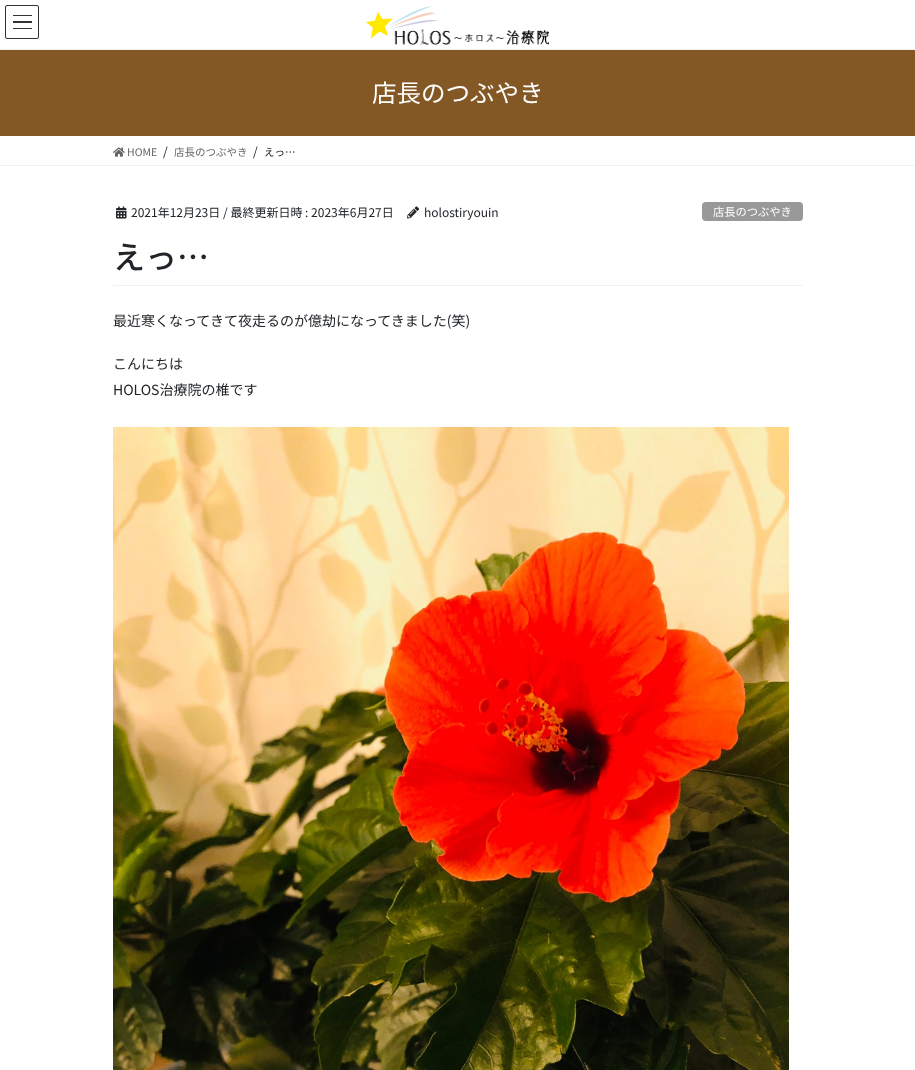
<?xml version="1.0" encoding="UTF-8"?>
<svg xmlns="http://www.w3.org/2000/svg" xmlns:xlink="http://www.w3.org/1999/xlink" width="915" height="1070">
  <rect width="100%" height="100%" fill="#ffffff" />
  <rect x="13" y="15" width="19" height="1" fill="#333333" />
  <rect x="13" y="21" width="19" height="2" fill="#333333" />
  <rect x="13" y="28" width="19" height="1" fill="#333333" />
  <rect x="5.5" y="5.5" width="33" height="33" rx="1.5" fill="none" stroke="#333333" />
  <rect y="49" width="915" height="1" fill="#f2f2f2" />
  <image x="366" y="6" width="184" height="39" xlink:href="image1.png" />
  <rect y="50" width="915" height="86" fill="#845825" />
  <rect y="165" width="915" height="1" fill="#f2f2f2" />
  <image x="113" y="147" width="12" height="10" xlink:href="image2.png" />
  <rect x="113" y="285" width="690" height="1" fill="#f2f2f2" />
  <image x="116" y="206" width="11" height="13" xlink:href="image3.png" />
  <image x="407" y="206" width="12" height="13" xlink:href="image4.png" />
  <rect x="702" y="202" width="101" height="19" rx="4" fill="#999999" />
  <image x="113" y="427" width="676" height="643" xlink:href="image5.png" />
  <text x="372" y="102" style="font-family: Noto Sans JP; font-size: 24.5px; fill: #ffffff">店長のつぶやき</text>
  <text x="127" y="156" style="font-family: Noto Sans JP; font-size: 10.5px; fill: #666666">HOME</text>
  <text x="163" y="156" style="font-family: Noto Sans JP; font-size: 12px; fill: #212529">/</text>
  <text x="174" y="156" style="font-family: Noto Sans JP; font-size: 10.5px; fill: #666666">店長のつぶやき</text>
  <text x="253" y="156" style="font-family: Noto Sans JP; font-size: 12px; fill: #212529">/</text>
  <text x="264" y="156" style="font-family: Noto Sans JP; font-size: 10.5px; fill: #212529">えっ…</text>
  <text x="131" y="217" style="font-family: Noto Sans JP; font-size: 12px; fill: #212529">2021年12月23日</text>
  <text x="223" y="217" style="font-family: Noto Sans JP; font-size: 12px; fill: #212529">/ 最終更新日時 : 2023年6月27日</text>
  <text x="424" y="217" style="font-family: Noto Sans JP; font-size: 12px; fill: #212529">holostiryouin</text>
  <text x="713" y="216" style="font-family: Noto Sans JP; font-size: 11.25px; fill: #ffffff">店長のつぶやき</text>
  <text x="113" y="269" style="font-family: Noto Sans JP; font-size: 32px; font-weight: 500; fill: #212529">えっ…</text>
  <text x="113" y="326" style="font-family: Noto Sans JP; font-size: 14px; fill: #212529">最近寒くなってきて夜走るのが億劫になってきました(笑)</text>
  <text x="113" y="369" style="font-family: Noto Sans JP; font-size: 14px; fill: #212529">こんにちは</text>
  <text x="113" y="395" style="font-family: Noto Sans JP; font-size: 14px; fill: #212529">HOLOS治療院の椎です</text>
</svg>
